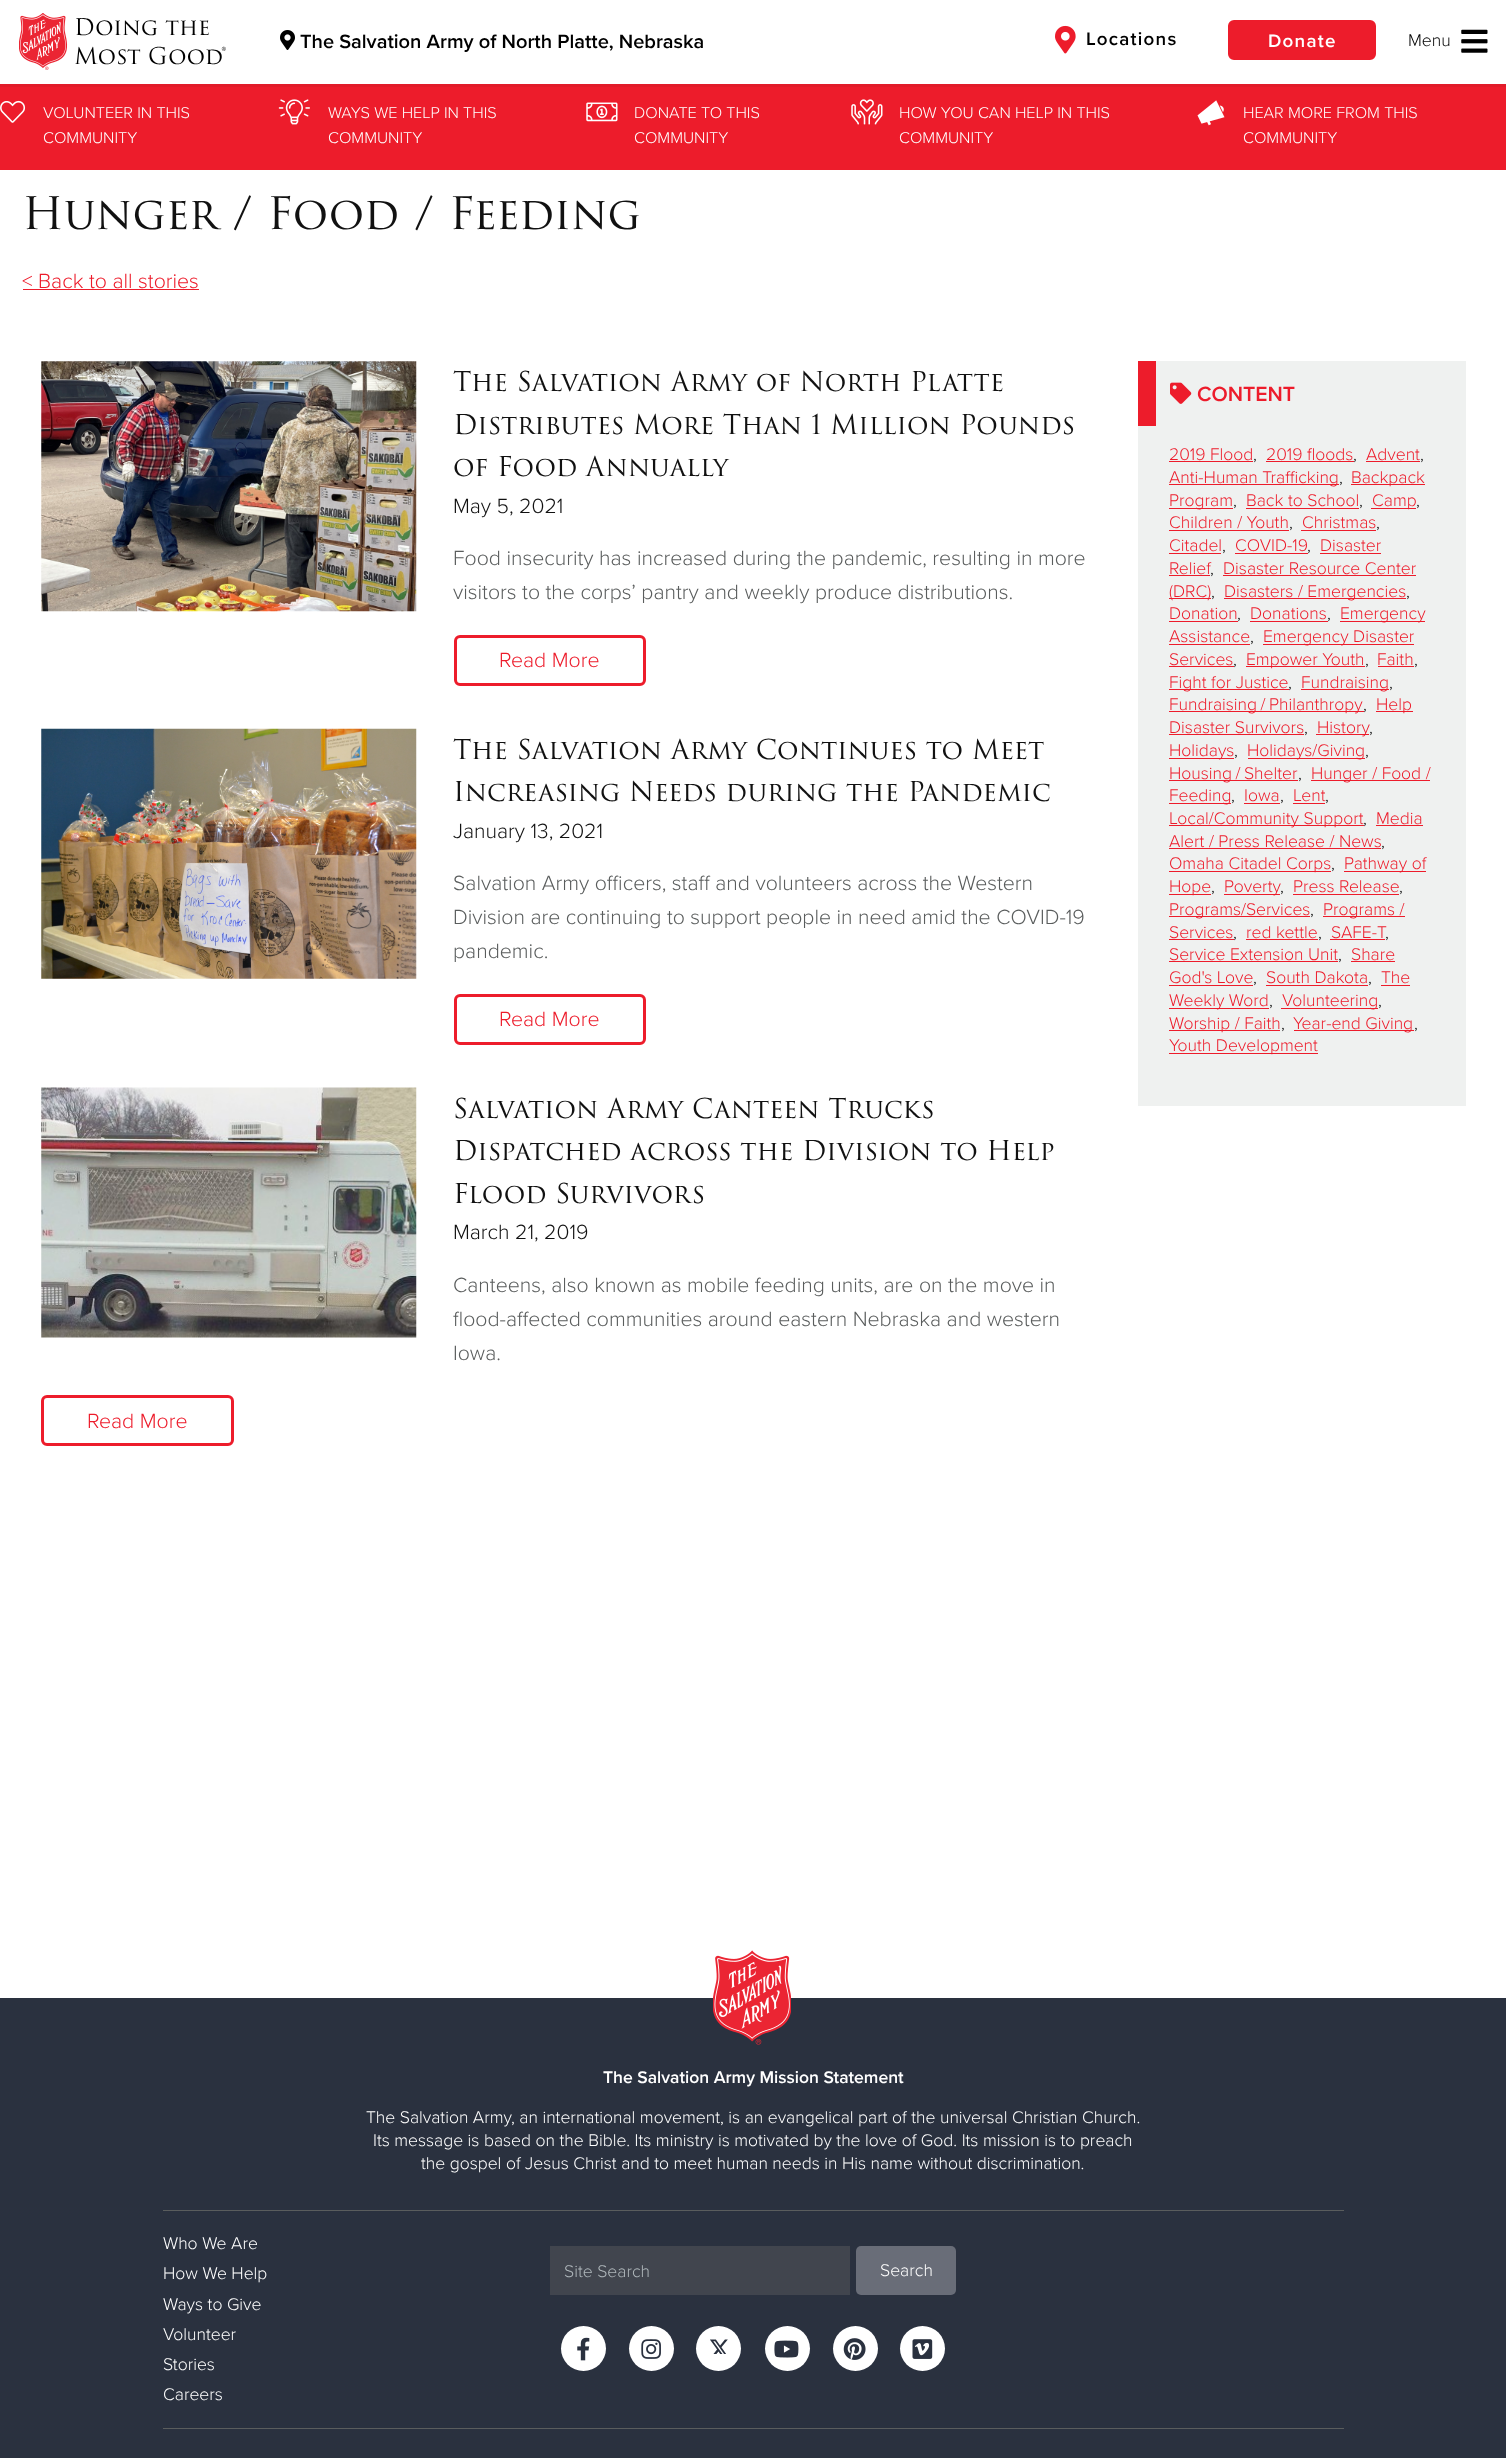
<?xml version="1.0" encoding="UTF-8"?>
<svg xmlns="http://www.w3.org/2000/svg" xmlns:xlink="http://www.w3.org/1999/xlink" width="1506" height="2458">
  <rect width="100%" height="100%" fill="#ffffff" />
  <image x="19" y="13" width="49" height="57" xlink:href="image1.png" />
  <image x="280" y="30" width="15" height="20" xlink:href="image2.png" />
  <image x="1055" y="25" width="21" height="29" xlink:href="image3.png" />
  <rect x="1229.5" y="21.5" width="145" height="37" rx="4.5" fill="#ed1c2b" stroke="#ed1c2b" stroke-width="3" />
  <image x="1461" y="29" width="27" height="24" xlink:href="image4.png" />
  <rect y="84" width="1506" height="3" fill="#e11b29" />
  <rect y="87" width="1506" height="83" fill="#ed1c2b" />
  <image x="0" y="100" width="26" height="23" xlink:href="image5.png" />
  <image x="278" y="99" width="32" height="26" xlink:href="image6.png" />
  <image x="586" y="102" width="32" height="20" xlink:href="image7.png" />
  <image x="851" y="99" width="32" height="26" xlink:href="image8.png" />
  <image x="1197" y="100" width="28" height="26" xlink:href="image9.png" />
  <rect x="23" y="289" width="176" height="1" fill="#ed1c2b" />
  <image x="41" y="361" width="376" height="251" xlink:href="image10.png" />
  <rect x="455.5" y="636.5" width="189" height="48" rx="4.5" fill="none" stroke="#ed1c2b" stroke-width="3" />
  <image x="41" y="728" width="376" height="251" xlink:href="image11.png" />
  <rect x="455.5" y="995.5" width="189" height="48" rx="4.5" fill="none" stroke="#ed1c2b" stroke-width="3" />
  <image x="41" y="1087" width="376" height="251" xlink:href="image12.png" />
  <rect x="42.5" y="1396.5" width="190" height="48" rx="4.5" fill="none" stroke="#ed1c2b" stroke-width="3" />
  <rect x="1138" y="361" width="328" height="745" fill="#eff1f0" />
  <rect x="1138" y="361" width="18" height="65" fill="#ed1c2b" />
  <image x="1170" y="382" width="22" height="22" xlink:href="image13.png" />
  <rect x="1169" y="461" width="84" height="1" fill="#ed1c2b" />
  <rect x="1266" y="461" width="88" height="1" fill="#ed1c2b" />
  <rect x="1366" y="461" width="54" height="1" fill="#ed1c2b" />
  <rect x="1169" y="484" width="170" height="1" fill="#ed1c2b" />
  <rect x="1351" y="484" width="74" height="1" fill="#ed1c2b" />
  <rect x="1169" y="508" width="64" height="1" fill="#ed1c2b" />
  <rect x="1246" y="508" width="113" height="1" fill="#ed1c2b" />
  <rect x="1371" y="508" width="45" height="1" fill="#ed1c2b" />
  <rect x="1169" y="530" width="120" height="1" fill="#ed1c2b" />
  <rect x="1301" y="530" width="75" height="1" fill="#ed1c2b" />
  <rect x="1169" y="553" width="52" height="1" fill="#ed1c2b" />
  <rect x="1235" y="553" width="73" height="1" fill="#ed1c2b" />
  <rect x="1320" y="553" width="61" height="1" fill="#ed1c2b" />
  <rect x="1169" y="575" width="41" height="1" fill="#ed1c2b" />
  <rect x="1223" y="575" width="193" height="1" fill="#ed1c2b" />
  <rect x="1169" y="598" width="42" height="1" fill="#ed1c2b" />
  <rect x="1224" y="598" width="182" height="1" fill="#ed1c2b" />
  <rect x="1169" y="621" width="69" height="1" fill="#ed1c2b" />
  <rect x="1250" y="621" width="78" height="1" fill="#ed1c2b" />
  <rect x="1340" y="621" width="85" height="1" fill="#ed1c2b" />
  <rect x="1169" y="644" width="81" height="1" fill="#ed1c2b" />
  <rect x="1263" y="644" width="151" height="1" fill="#ed1c2b" />
  <rect x="1169" y="666" width="65" height="1" fill="#ed1c2b" />
  <rect x="1246" y="666" width="119" height="1" fill="#ed1c2b" />
  <rect x="1378" y="666" width="36" height="1" fill="#ed1c2b" />
  <rect x="1169" y="689" width="120" height="1" fill="#ed1c2b" />
  <rect x="1301" y="689" width="88" height="1" fill="#ed1c2b" />
  <rect x="1169" y="711" width="195" height="1" fill="#ed1c2b" />
  <rect x="1376" y="711" width="37" height="1" fill="#ed1c2b" />
  <rect x="1169" y="734" width="135" height="1" fill="#ed1c2b" />
  <rect x="1316" y="734" width="53" height="1" fill="#ed1c2b" />
  <rect x="1169" y="758" width="65" height="1" fill="#ed1c2b" />
  <rect x="1248" y="758" width="117" height="1" fill="#ed1c2b" />
  <rect x="1169" y="780" width="129" height="1" fill="#ed1c2b" />
  <rect x="1311" y="780" width="119" height="1" fill="#ed1c2b" />
  <rect x="1169" y="803" width="62" height="1" fill="#ed1c2b" />
  <rect x="1244" y="803" width="36" height="1" fill="#ed1c2b" />
  <rect x="1293" y="803" width="32" height="1" fill="#ed1c2b" />
  <rect x="1169" y="825" width="195" height="1" fill="#ed1c2b" />
  <rect x="1376" y="825" width="47" height="1" fill="#ed1c2b" />
  <rect x="1169" y="848" width="212" height="1" fill="#ed1c2b" />
  <rect x="1169" y="871" width="162" height="1" fill="#ed1c2b" />
  <rect x="1344" y="871" width="82" height="1" fill="#ed1c2b" />
  <rect x="1169" y="894" width="42" height="1" fill="#ed1c2b" />
  <rect x="1224" y="894" width="56" height="1" fill="#ed1c2b" />
  <rect x="1293" y="894" width="106" height="1" fill="#ed1c2b" />
  <rect x="1169" y="916" width="141" height="1" fill="#ed1c2b" />
  <rect x="1323" y="916" width="82" height="1" fill="#ed1c2b" />
  <rect x="1169" y="939" width="65" height="1" fill="#ed1c2b" />
  <rect x="1246" y="939" width="72" height="1" fill="#ed1c2b" />
  <rect x="1330" y="939" width="55" height="1" fill="#ed1c2b" />
  <rect x="1169" y="961" width="169" height="1" fill="#ed1c2b" />
  <rect x="1351" y="961" width="44" height="1" fill="#ed1c2b" />
  <rect x="1169" y="985" width="84" height="1" fill="#ed1c2b" />
  <rect x="1266" y="985" width="102" height="1" fill="#ed1c2b" />
  <rect x="1381" y="985" width="29" height="1" fill="#ed1c2b" />
  <rect x="1169" y="1008" width="100" height="1" fill="#ed1c2b" />
  <rect x="1281" y="1008" width="97" height="1" fill="#ed1c2b" />
  <rect x="1169" y="1030" width="111" height="1" fill="#ed1c2b" />
  <rect x="1294" y="1030" width="120" height="1" fill="#ed1c2b" />
  <rect x="1169" y="1053" width="149" height="1" fill="#ed1c2b" />
  <rect y="1998" width="1506" height="460" fill="#2a313f" />
  <image x="713" y="1950" width="78" height="95" xlink:href="image14.png" />
  <rect x="163" y="2210" width="1181" height="1" fill="#5a5d5d" />
  <rect x="550" y="2246" width="300" height="49" fill="#41454e" />
  <rect x="856" y="2246" width="100" height="49" rx="5" fill="#696d78" />
  <circle cx="583.5" cy="2348.5" r="22.5" fill="#ffffff" />
  <image x="577" y="2337" width="13" height="24" xlink:href="image15.png" />
  <circle cx="651.5" cy="2348.5" r="22.5" fill="#ffffff" />
  <image x="641" y="2339" width="20" height="20" xlink:href="image16.png" />
  <circle cx="718.5" cy="2348.5" r="22.5" fill="#ffffff" />
  <image x="710" y="2339" width="18" height="15" xlink:href="image17.png" />
  <circle cx="787.5" cy="2348.5" r="22.5" fill="#ffffff" />
  <image x="774" y="2340" width="25" height="18" xlink:href="image18.png" />
  <circle cx="855.5" cy="2348.5" r="22.5" fill="#ffffff" />
  <image x="843" y="2338" width="23" height="22" xlink:href="image19.png" />
  <circle cx="922.5" cy="2348.5" r="22.5" fill="#ffffff" />
  <image x="912" y="2339" width="21" height="20" xlink:href="image20.png" />
  <rect x="163" y="2428" width="1181" height="1" fill="#5a5d5d" />
  <text x="74" y="35" style="font-family: 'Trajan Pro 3'; font-size: 22.5px; fill: #000000">Doing the</text>
  <text x="74" y="64" style="font-family: 'Trajan Pro 3'; font-size: 22.5px; fill: #000000">Most Good®</text>
  <text x="300" y="48" style="font-family: Proxima Nova; font-size: 20px; font-weight: 600; fill: #000000">The Salvation Army of North Platte, Nebraska</text>
  <text x="1086" y="45" style="font-family: Proxima Nova; font-size: 18.75px; font-weight: 600; letter-spacing: 1.25px; fill: #000000">Locations</text>
  <text x="1268" y="47" style="font-family: Proxima Nova; font-size: 18.75px; font-weight: 600; letter-spacing: 1.25px; fill: #ffffff">Donate</text>
  <text x="1408" y="46" style="font-family: Proxima Nova; font-size: 17.5px; font-weight: 300; fill: #000000">Menu</text>
  <text x="43" y="118" style="font-family: Proxima Nova; font-size: 16.25px; font-weight: 300; fill: #ffffff">VOLUNTEER IN THIS</text>
  <text x="43" y="143" style="font-family: Proxima Nova; font-size: 16.25px; font-weight: 300; fill: #ffffff">COMMUNITY</text>
  <text x="328" y="118" style="font-family: Proxima Nova; font-size: 16.25px; font-weight: 300; fill: #ffffff">WAYS WE HELP IN THIS</text>
  <text x="328" y="143" style="font-family: Proxima Nova; font-size: 16.25px; font-weight: 300; fill: #ffffff">COMMUNITY</text>
  <text x="634" y="118" style="font-family: Proxima Nova; font-size: 16.25px; font-weight: 300; fill: #ffffff">DONATE TO THIS</text>
  <text x="634" y="143" style="font-family: Proxima Nova; font-size: 16.25px; font-weight: 300; fill: #ffffff">COMMUNITY</text>
  <text x="899" y="118" style="font-family: Proxima Nova; font-size: 16.25px; font-weight: 300; fill: #ffffff">HOW YOU CAN HELP IN THIS</text>
  <text x="899" y="143" style="font-family: Proxima Nova; font-size: 16.25px; font-weight: 300; fill: #ffffff">COMMUNITY</text>
  <text x="1243" y="118" style="font-family: Proxima Nova; font-size: 16.25px; font-weight: 300; fill: #ffffff">HEAR MORE FROM THIS</text>
  <text x="1243" y="143" style="font-family: Proxima Nova; font-size: 16.25px; font-weight: 300; fill: #ffffff">COMMUNITY</text>
  <text x="22" y="229" style="font-family: 'Trajan Pro 3'; font-size: 43.75px; fill: #111111">Hunger / Food / Feeding</text>
  <text x="22" y="288" style="font-family: Proxima Nova; font-size: 21.25px; font-weight: 300; fill: #ed1c2b">&lt; Back to all stories</text>
  <text x="453" y="391" style="font-family: 'Trajan Pro 3'; font-size: 26.6px; fill: #111111">The Salvation Army of North Platte</text>
  <text x="453" y="434" style="font-family: 'Trajan Pro 3'; font-size: 26.6px; fill: #111111">Distributes More Than 1 Million Pounds</text>
  <text x="453" y="476" style="font-family: 'Trajan Pro 3'; font-size: 26.6px; fill: #111111">of Food Annually</text>
  <text x="453" y="513" style="font-family: Proxima Nova; font-size: 21.25px; font-weight: 300; fill: #111111">May 5, 2021</text>
  <text x="453" y="565" style="font-family: Proxima Nova; font-size: 21.25px; font-weight: 300; fill: #5a5d5d">Food insecurity has increased during the pandemic, resulting in more</text>
  <text x="453" y="599" style="font-family: Proxima Nova; font-size: 21.25px; font-weight: 300; fill: #5a5d5d">visitors to the corps’ pantry and weekly produce distributions.</text>
  <text x="499" y="667" style="font-family: Proxima Nova; font-size: 21.25px; font-weight: 300; fill: #ed1c2b">Read More</text>
  <text x="453" y="759" style="font-family: 'Trajan Pro 3'; font-size: 26.6px; fill: #111111">The Salvation Army Continues to Meet</text>
  <text x="453" y="801" style="font-family: 'Trajan Pro 3'; font-size: 26.6px; fill: #111111">Increasing Needs during the Pandemic</text>
  <text x="453" y="838" style="font-family: Proxima Nova; font-size: 21.25px; font-weight: 300; fill: #111111">January 13, 2021</text>
  <text x="453" y="890" style="font-family: Proxima Nova; font-size: 21.25px; font-weight: 300; fill: #5a5d5d">Salvation Army officers, staff and volunteers across the Western</text>
  <text x="453" y="924" style="font-family: Proxima Nova; font-size: 21.25px; font-weight: 300; fill: #5a5d5d">Division are continuing to support people in need amid the COVID-19</text>
  <text x="453" y="958" style="font-family: Proxima Nova; font-size: 21.25px; font-weight: 300; fill: #5a5d5d">pandemic.</text>
  <text x="499" y="1026" style="font-family: Proxima Nova; font-size: 21.25px; font-weight: 300; fill: #ed1c2b">Read More</text>
  <text x="453" y="1118" style="font-family: 'Trajan Pro 3'; font-size: 26.6px; fill: #111111">Salvation Army Canteen Trucks</text>
  <text x="453" y="1160" style="font-family: 'Trajan Pro 3'; font-size: 26.6px; fill: #111111">Dispatched across the Division to Help</text>
  <text x="453" y="1203" style="font-family: 'Trajan Pro 3'; font-size: 26.6px; fill: #111111">Flood Survivors</text>
  <text x="453" y="1239" style="font-family: Proxima Nova; font-size: 21.25px; font-weight: 300; fill: #111111">March 21, 2019</text>
  <text x="453" y="1292" style="font-family: Proxima Nova; font-size: 21.25px; font-weight: 300; fill: #5a5d5d">Canteens, also known as mobile feeding units, are on the move in</text>
  <text x="453" y="1326" style="font-family: Proxima Nova; font-size: 21.25px; font-weight: 300; fill: #5a5d5d">flood-affected communities around eastern Nebraska and western</text>
  <text x="453" y="1360" style="font-family: Proxima Nova; font-size: 21.25px; font-weight: 300; fill: #5a5d5d">Iowa.</text>
  <text x="87" y="1428" style="font-family: Proxima Nova; font-size: 21.25px; font-weight: 300; fill: #ed1c2b">Read More</text>
  <text x="1197" y="401" style="font-family: Proxima Nova; font-size: 21.25px; font-weight: 600; fill: #ed1c2b">CONTENT</text>
  <text x="1169" y="460" style="font-family: Proxima Nova; font-size: 17.5px; font-weight: 300; fill: #ed1c2b">2019 Flood</text>
  <text x="1253" y="460" style="font-family: Proxima Nova; font-size: 17.5px; font-weight: 300; fill: #111111">,</text>
  <text x="1266" y="460" style="font-family: Proxima Nova; font-size: 17.5px; font-weight: 300; fill: #ed1c2b">2019 floods</text>
  <text x="1353" y="460" style="font-family: Proxima Nova; font-size: 17.5px; font-weight: 300; fill: #111111">,</text>
  <text x="1366" y="460" style="font-family: Proxima Nova; font-size: 17.5px; font-weight: 300; fill: #ed1c2b">Advent</text>
  <text x="1420" y="460" style="font-family: Proxima Nova; font-size: 17.5px; font-weight: 300; fill: #111111">,</text>
  <text x="1169" y="483" style="font-family: Proxima Nova; font-size: 17.5px; font-weight: 300; fill: #ed1c2b">Anti-Human Trafficking</text>
  <text x="1339" y="483" style="font-family: Proxima Nova; font-size: 17.5px; font-weight: 300; fill: #111111">,</text>
  <text x="1351" y="483" style="font-family: Proxima Nova; font-size: 17.5px; font-weight: 300; fill: #ed1c2b">Backpack</text>
  <text x="1169" y="506" style="font-family: Proxima Nova; font-size: 17.5px; font-weight: 300; fill: #ed1c2b">Program</text>
  <text x="1233" y="506" style="font-family: Proxima Nova; font-size: 17.5px; font-weight: 300; fill: #111111">,</text>
  <text x="1246" y="506" style="font-family: Proxima Nova; font-size: 17.5px; font-weight: 300; fill: #ed1c2b">Back to School</text>
  <text x="1359" y="506" style="font-family: Proxima Nova; font-size: 17.5px; font-weight: 300; fill: #111111">,</text>
  <text x="1372" y="506" style="font-family: Proxima Nova; font-size: 17.5px; font-weight: 300; fill: #ed1c2b">Camp</text>
  <text x="1416" y="506" style="font-family: Proxima Nova; font-size: 17.5px; font-weight: 300; fill: #111111">,</text>
  <text x="1169" y="528" style="font-family: Proxima Nova; font-size: 17.5px; font-weight: 300; fill: #ed1c2b">Children / Youth</text>
  <text x="1289" y="528" style="font-family: Proxima Nova; font-size: 17.5px; font-weight: 300; fill: #111111">,</text>
  <text x="1302" y="528" style="font-family: Proxima Nova; font-size: 17.5px; font-weight: 300; fill: #ed1c2b">Christmas</text>
  <text x="1376" y="528" style="font-family: Proxima Nova; font-size: 17.5px; font-weight: 300; fill: #111111">,</text>
  <text x="1169" y="551" style="font-family: Proxima Nova; font-size: 17.5px; font-weight: 300; fill: #ed1c2b">Citadel</text>
  <text x="1222" y="551" style="font-family: Proxima Nova; font-size: 17.5px; font-weight: 300; fill: #111111">,</text>
  <text x="1235" y="551" style="font-family: Proxima Nova; font-size: 17.5px; font-weight: 300; fill: #ed1c2b">COVID-19</text>
  <text x="1307" y="551" style="font-family: Proxima Nova; font-size: 17.5px; font-weight: 300; fill: #111111">,</text>
  <text x="1320" y="551" style="font-family: Proxima Nova; font-size: 17.5px; font-weight: 300; fill: #ed1c2b">Disaster</text>
  <text x="1169" y="574" style="font-family: Proxima Nova; font-size: 17.5px; font-weight: 300; fill: #ed1c2b">Relief</text>
  <text x="1223" y="574" style="font-family: Proxima Nova; font-size: 17.5px; font-weight: 300; fill: #ed1c2b">Disaster Resource Center</text>
  <text x="1210" y="574" style="font-family: Proxima Nova; font-size: 17.5px; font-weight: 300; fill: #111111">,</text>
  <text x="1169" y="597" style="font-family: Proxima Nova; font-size: 17.5px; font-weight: 300; fill: #ed1c2b">(DRC)</text>
  <text x="1211" y="597" style="font-family: Proxima Nova; font-size: 17.5px; font-weight: 300; fill: #111111">,</text>
  <text x="1224" y="597" style="font-family: Proxima Nova; font-size: 17.5px; font-weight: 300; fill: #ed1c2b">Disasters / Emergencies</text>
  <text x="1406" y="597" style="font-family: Proxima Nova; font-size: 17.5px; font-weight: 300; fill: #111111">,</text>
  <text x="1169" y="619" style="font-family: Proxima Nova; font-size: 17.5px; font-weight: 300; fill: #ed1c2b">Donation</text>
  <text x="1237" y="619" style="font-family: Proxima Nova; font-size: 17.5px; font-weight: 300; fill: #111111">,</text>
  <text x="1250" y="619" style="font-family: Proxima Nova; font-size: 17.5px; font-weight: 300; fill: #ed1c2b">Donations</text>
  <text x="1327" y="619" style="font-family: Proxima Nova; font-size: 17.5px; font-weight: 300; fill: #111111">,</text>
  <text x="1340" y="619" style="font-family: Proxima Nova; font-size: 17.5px; font-weight: 300; fill: #ed1c2b">Emergency</text>
  <text x="1169" y="642" style="font-family: Proxima Nova; font-size: 17.5px; font-weight: 300; fill: #ed1c2b">Assistance</text>
  <text x="1250" y="642" style="font-family: Proxima Nova; font-size: 17.5px; font-weight: 300; fill: #111111">,</text>
  <text x="1263" y="642" style="font-family: Proxima Nova; font-size: 17.5px; font-weight: 300; fill: #ed1c2b">Emergency Disaster</text>
  <text x="1169" y="665" style="font-family: Proxima Nova; font-size: 17.5px; font-weight: 300; fill: #ed1c2b">Services</text>
  <text x="1233" y="665" style="font-family: Proxima Nova; font-size: 17.5px; font-weight: 300; fill: #111111">,</text>
  <text x="1246" y="665" style="font-family: Proxima Nova; font-size: 17.5px; font-weight: 300; fill: #ed1c2b">Empower Youth</text>
  <text x="1365" y="665" style="font-family: Proxima Nova; font-size: 17.5px; font-weight: 300; fill: #111111">,</text>
  <text x="1377" y="665" style="font-family: Proxima Nova; font-size: 17.5px; font-weight: 300; fill: #ed1c2b">Faith</text>
  <text x="1414" y="665" style="font-family: Proxima Nova; font-size: 17.5px; font-weight: 300; fill: #111111">,</text>
  <text x="1169" y="688" style="font-family: Proxima Nova; font-size: 17.5px; font-weight: 300; fill: #ed1c2b">Fight for Justice</text>
  <text x="1288" y="688" style="font-family: Proxima Nova; font-size: 17.5px; font-weight: 300; fill: #111111">,</text>
  <text x="1301" y="688" style="font-family: Proxima Nova; font-size: 17.5px; font-weight: 300; fill: #ed1c2b">Fundraising</text>
  <text x="1389" y="688" style="font-family: Proxima Nova; font-size: 17.5px; font-weight: 300; fill: #111111">,</text>
  <text x="1169" y="710" word-spacing="-1" style="font-family: Proxima Nova; font-size: 17.5px; font-weight: 300; fill: #ed1c2b">Fundraising / Philanthropy</text>
  <text x="1363" y="710" style="font-family: Proxima Nova; font-size: 17.5px; font-weight: 300; fill: #111111">,</text>
  <text x="1376" y="710" style="font-family: Proxima Nova; font-size: 17.5px; font-weight: 300; fill: #ed1c2b">Help</text>
  <text x="1169" y="733" style="font-family: Proxima Nova; font-size: 17.5px; font-weight: 300; fill: #ed1c2b">Disaster Survivors</text>
  <text x="1304" y="733" style="font-family: Proxima Nova; font-size: 17.5px; font-weight: 300; fill: #111111">,</text>
  <text x="1317" y="733" style="font-family: Proxima Nova; font-size: 17.5px; font-weight: 300; fill: #ed1c2b">History</text>
  <text x="1369" y="733" style="font-family: Proxima Nova; font-size: 17.5px; font-weight: 300; fill: #111111">,</text>
  <text x="1169" y="756" style="font-family: Proxima Nova; font-size: 17.5px; font-weight: 300; fill: #ed1c2b">Holidays</text>
  <text x="1234" y="756" style="font-family: Proxima Nova; font-size: 17.5px; font-weight: 300; fill: #111111">,</text>
  <text x="1247" y="756" style="font-family: Proxima Nova; font-size: 17.5px; font-weight: 300; fill: #ed1c2b">Holidays/Giving</text>
  <text x="1365" y="756" style="font-family: Proxima Nova; font-size: 17.5px; font-weight: 300; fill: #111111">,</text>
  <text x="1169" y="779" word-spacing="-1" style="font-family: Proxima Nova; font-size: 17.5px; font-weight: 300; fill: #ed1c2b">Housing / Shelter</text>
  <text x="1298" y="779" style="font-family: Proxima Nova; font-size: 17.5px; font-weight: 300; fill: #111111">,</text>
  <text x="1311" y="779" style="font-family: Proxima Nova; font-size: 17.5px; font-weight: 300; fill: #ed1c2b">Hunger / Food /</text>
  <text x="1169" y="801" style="font-family: Proxima Nova; font-size: 17.5px; font-weight: 300; fill: #ed1c2b">Feeding</text>
  <text x="1231" y="801" style="font-family: Proxima Nova; font-size: 17.5px; font-weight: 300; fill: #111111">,</text>
  <text x="1244" y="801" style="font-family: Proxima Nova; font-size: 17.5px; font-weight: 300; fill: #ed1c2b">Iowa</text>
  <text x="1280" y="801" style="font-family: Proxima Nova; font-size: 17.5px; font-weight: 300; fill: #111111">,</text>
  <text x="1293" y="801" style="font-family: Proxima Nova; font-size: 17.5px; font-weight: 300; fill: #ed1c2b">Lent</text>
  <text x="1325" y="801" style="font-family: Proxima Nova; font-size: 17.5px; font-weight: 300; fill: #111111">,</text>
  <text x="1169" y="824" style="font-family: Proxima Nova; font-size: 17.5px; font-weight: 300; fill: #ed1c2b">Local/Community Support</text>
  <text x="1363" y="824" style="font-family: Proxima Nova; font-size: 17.5px; font-weight: 300; fill: #111111">,</text>
  <text x="1376" y="824" style="font-family: Proxima Nova; font-size: 17.5px; font-weight: 300; fill: #ed1c2b">Media</text>
  <text x="1169" y="847" style="font-family: Proxima Nova; font-size: 17.5px; font-weight: 300; fill: #ed1c2b">Alert / Press Release / News</text>
  <text x="1381" y="847" style="font-family: Proxima Nova; font-size: 17.5px; font-weight: 300; fill: #111111">,</text>
  <text x="1169" y="869" style="font-family: Proxima Nova; font-size: 17.5px; font-weight: 300; fill: #ed1c2b">Omaha Citadel Corps</text>
  <text x="1331" y="869" style="font-family: Proxima Nova; font-size: 17.5px; font-weight: 300; fill: #111111">,</text>
  <text x="1344" y="869" style="font-family: Proxima Nova; font-size: 17.5px; font-weight: 300; fill: #ed1c2b">Pathway of</text>
  <text x="1169" y="892" style="font-family: Proxima Nova; font-size: 17.5px; font-weight: 300; fill: #ed1c2b">Hope</text>
  <text x="1211" y="892" style="font-family: Proxima Nova; font-size: 17.5px; font-weight: 300; fill: #111111">,</text>
  <text x="1224" y="892" style="font-family: Proxima Nova; font-size: 17.5px; font-weight: 300; fill: #ed1c2b">Poverty</text>
  <text x="1280" y="892" style="font-family: Proxima Nova; font-size: 17.5px; font-weight: 300; fill: #111111">,</text>
  <text x="1293" y="892" style="font-family: Proxima Nova; font-size: 17.5px; font-weight: 300; fill: #ed1c2b">Press Release</text>
  <text x="1399" y="892" style="font-family: Proxima Nova; font-size: 17.5px; font-weight: 300; fill: #111111">,</text>
  <text x="1169" y="915" style="font-family: Proxima Nova; font-size: 17.5px; font-weight: 300; fill: #ed1c2b">Programs/Services</text>
  <text x="1310" y="915" style="font-family: Proxima Nova; font-size: 17.5px; font-weight: 300; fill: #111111">,</text>
  <text x="1323" y="915" style="font-family: Proxima Nova; font-size: 17.5px; font-weight: 300; fill: #ed1c2b">Programs /</text>
  <text x="1169" y="938" style="font-family: Proxima Nova; font-size: 17.5px; font-weight: 300; fill: #ed1c2b">Services</text>
  <text x="1233" y="938" style="font-family: Proxima Nova; font-size: 17.5px; font-weight: 300; fill: #111111">,</text>
  <text x="1246" y="938" style="font-family: Proxima Nova; font-size: 17.5px; font-weight: 300; fill: #ed1c2b">red kettle</text>
  <text x="1318" y="938" style="font-family: Proxima Nova; font-size: 17.5px; font-weight: 300; fill: #111111">,</text>
  <text x="1331" y="938" style="font-family: Proxima Nova; font-size: 17.5px; font-weight: 300; fill: #ed1c2b">SAFE-T</text>
  <text x="1385" y="938" style="font-family: Proxima Nova; font-size: 17.5px; font-weight: 300; fill: #111111">,</text>
  <text x="1169" y="960" style="font-family: Proxima Nova; font-size: 17.5px; font-weight: 300; fill: #ed1c2b">Service Extension Unit</text>
  <text x="1338" y="960" style="font-family: Proxima Nova; font-size: 17.5px; font-weight: 300; fill: #111111">,</text>
  <text x="1351" y="960" style="font-family: Proxima Nova; font-size: 17.5px; font-weight: 300; fill: #ed1c2b">Share</text>
  <text x="1169" y="983" style="font-family: Proxima Nova; font-size: 17.5px; font-weight: 300; fill: #ed1c2b">God's Love</text>
  <text x="1253" y="983" style="font-family: Proxima Nova; font-size: 17.5px; font-weight: 300; fill: #111111">,</text>
  <text x="1266" y="983" style="font-family: Proxima Nova; font-size: 17.5px; font-weight: 300; fill: #ed1c2b">South Dakota</text>
  <text x="1368" y="983" style="font-family: Proxima Nova; font-size: 17.5px; font-weight: 300; fill: #111111">,</text>
  <text x="1381" y="983" style="font-family: Proxima Nova; font-size: 17.5px; font-weight: 300; fill: #ed1c2b">The</text>
  <text x="1169" y="1006" style="font-family: Proxima Nova; font-size: 17.5px; font-weight: 300; fill: #ed1c2b">Weekly Word</text>
  <text x="1269" y="1006" style="font-family: Proxima Nova; font-size: 17.5px; font-weight: 300; fill: #111111">,</text>
  <text x="1282" y="1006" style="font-family: Proxima Nova; font-size: 17.5px; font-weight: 300; fill: #ed1c2b">Volunteering</text>
  <text x="1378" y="1006" style="font-family: Proxima Nova; font-size: 17.5px; font-weight: 300; fill: #111111">,</text>
  <text x="1169" y="1029" style="font-family: Proxima Nova; font-size: 17.5px; font-weight: 300; fill: #ed1c2b">Worship / Faith</text>
  <text x="1281" y="1029" style="font-family: Proxima Nova; font-size: 17.5px; font-weight: 300; fill: #111111">,</text>
  <text x="1293" y="1029" style="font-family: Proxima Nova; font-size: 17.5px; font-weight: 300; fill: #ed1c2b">Year-end Giving</text>
  <text x="1414" y="1029" style="font-family: Proxima Nova; font-size: 17.5px; font-weight: 300; fill: #111111">,</text>
  <text x="1169" y="1051" style="font-family: Proxima Nova; font-size: 17.5px; font-weight: 300; fill: #ed1c2b">Youth Development</text>
  <text x="603" y="2083" style="font-family: Proxima Nova; font-size: 17.5px; font-weight: 600; fill: #ffffff">The Salvation Army Mission Statement</text>
  <text x="366" y="2123" style="font-family: Proxima Nova; font-size: 17.5px; font-weight: 300; fill: #ffffff">The Salvation Army, an international movement, is an evangelical part of the universal Christian Church.</text>
  <text x="373" y="2146" style="font-family: Proxima Nova; font-size: 17.5px; font-weight: 300; fill: #ffffff">Its message is based on the Bible. Its ministry is motivated by the love of God. Its mission is to preach</text>
  <text x="421" y="2169" style="font-family: Proxima Nova; font-size: 17.5px; font-weight: 300; fill: #ffffff">the gospel of Jesus Christ and to meet human needs in His name without discrimination.</text>
  <text x="163" y="2249" style="font-family: Proxima Nova; font-size: 17.5px; font-weight: 300; fill: #ffffff">Who We Are</text>
  <text x="163" y="2279" style="font-family: Proxima Nova; font-size: 17.5px; font-weight: 300; fill: #ffffff">How We Help</text>
  <text x="163" y="2310" style="font-family: Proxima Nova; font-size: 17.5px; font-weight: 300; fill: #ffffff">Ways to Give</text>
  <text x="163" y="2340" style="font-family: Proxima Nova; font-size: 17.5px; font-weight: 300; fill: #ffffff">Volunteer</text>
  <text x="163" y="2370" style="font-family: Proxima Nova; font-size: 17.5px; font-weight: 300; fill: #ffffff">Stories</text>
  <text x="163" y="2400" style="font-family: Proxima Nova; font-size: 17.5px; font-weight: 300; fill: #ffffff">Careers</text>
  <text x="564" y="2277" style="font-family: Proxima Nova; font-size: 17.5px; font-weight: 300; fill: #afb7bb">Site Search</text>
  <text x="880" y="2276" style="font-family: Proxima Nova; font-size: 17.5px; font-weight: 300; fill: #ffffff">Search</text>
</svg>
